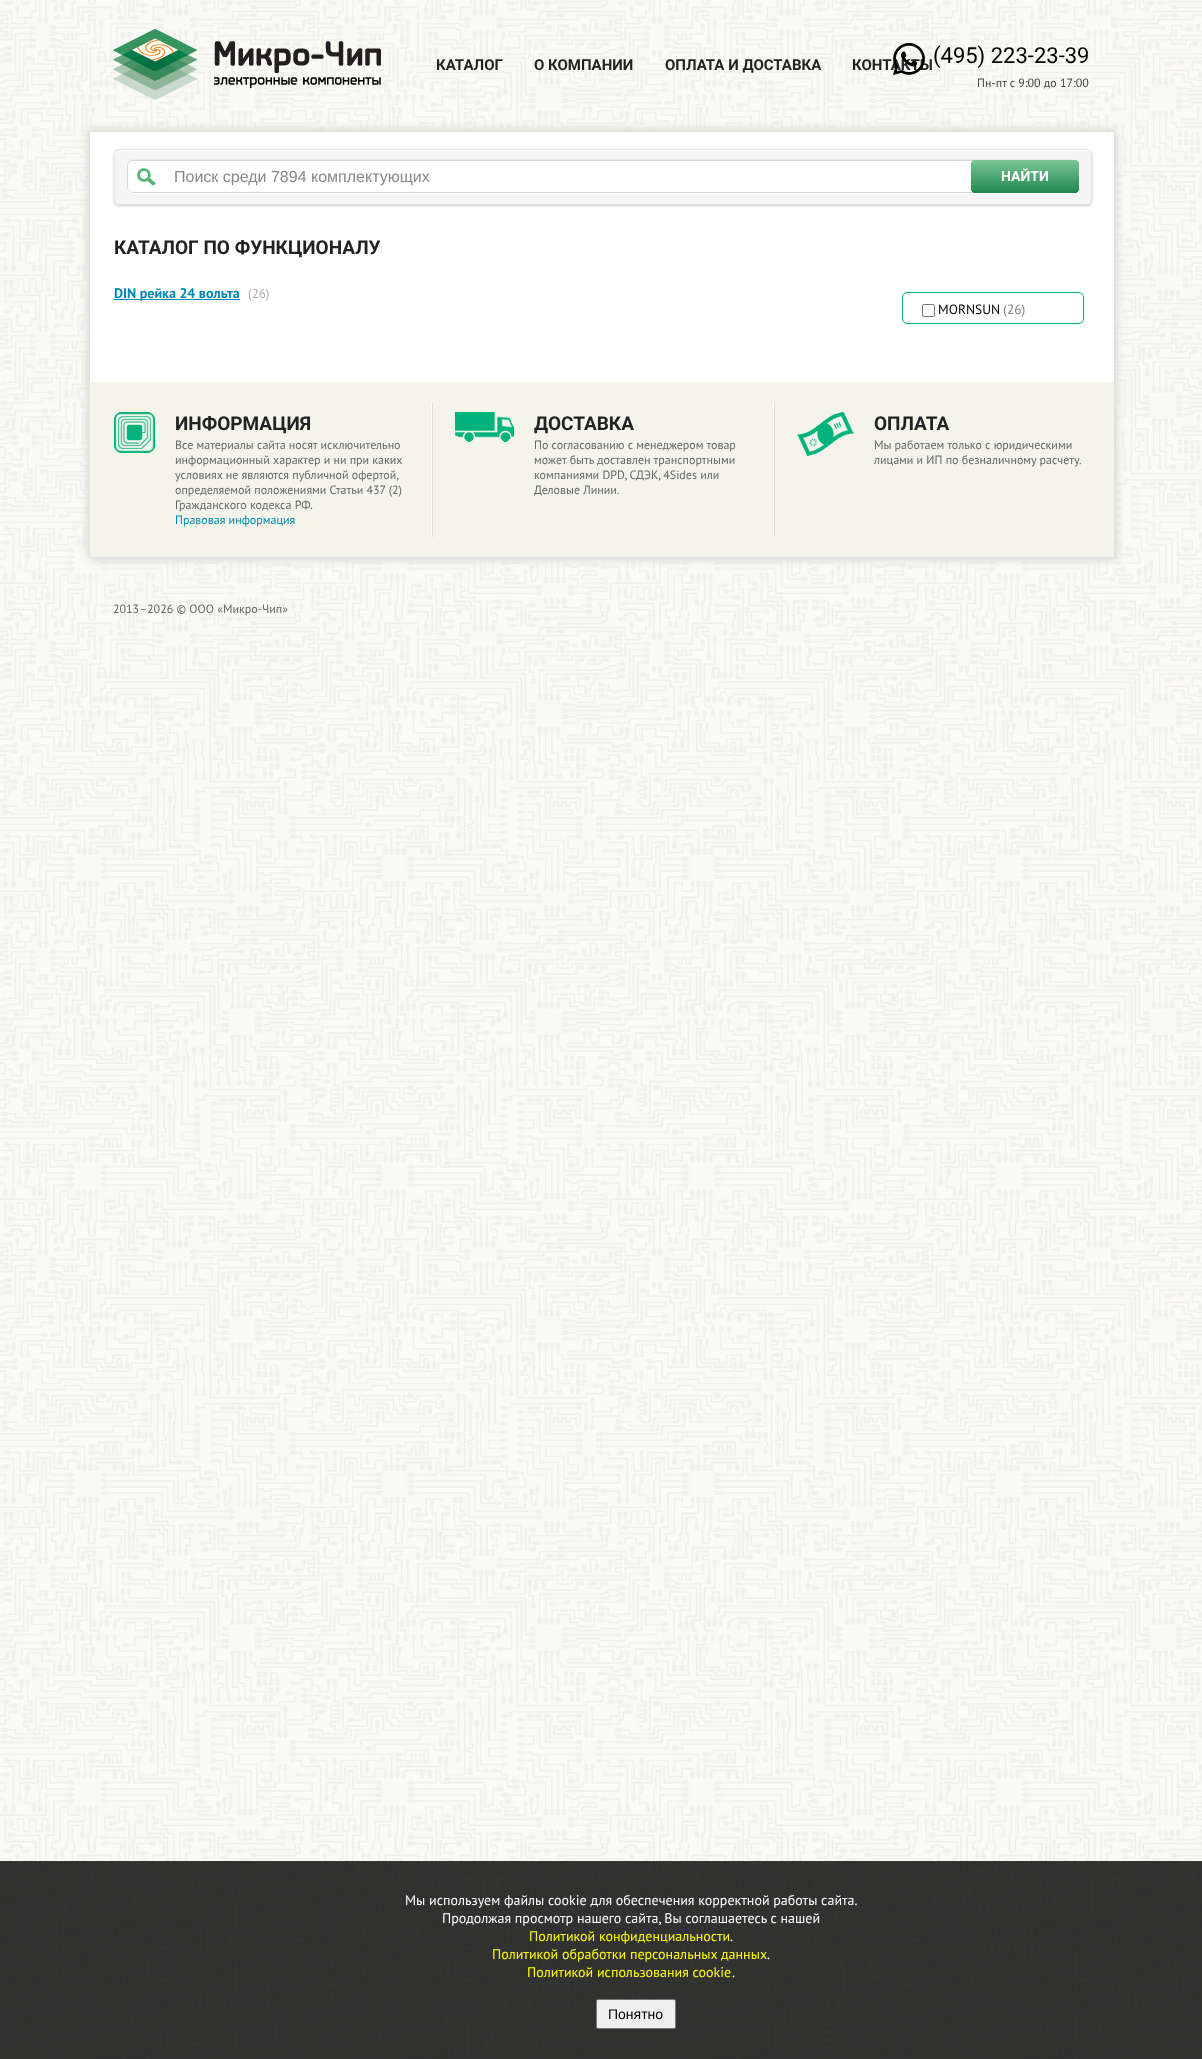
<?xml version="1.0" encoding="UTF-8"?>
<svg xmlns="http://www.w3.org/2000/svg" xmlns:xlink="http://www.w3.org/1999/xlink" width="1202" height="2059">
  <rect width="100%" height="100%" fill="#ffffff" />
  <image x="0" y="0" width="1202" height="2059" xlink:href="image1.png" />
  <image x="113" y="29" width="268" height="71" xlink:href="image2.png" />
  <rect x="87" y="129" width="1026" height="427" fill="#dcddd8" filter="blur(4.5px)" />
  <rect x="91" y="133" width="1026" height="427" fill="#dcddd8" filter="blur(4.5px)" />
  <rect x="90" y="132" width="1024" height="250" fill="#ffffff" />
  <rect x="89.5" y="131.5" width="1025" height="426" fill="none" stroke="#dfe1db" />
  <rect x="114" y="150" width="978" height="56" rx="5" fill="#c4c4c4" filter="blur(1px)" />
  <rect x="114" y="149" width="978" height="56" rx="5" fill="#f5f5f5" />
  <path d="M 119 151 h 968 c 2 0 4 2 4 4 c 0 -3 -1 -5 -4 -5 h -968 c -3 0 -4 2 -4 5 c 0 -2 2 -4 4 -4 z" fill="#fafafa" />
  <rect x="114.5" y="149.5" width="977" height="55" rx="4.5" fill="none" stroke="#e3e5e4" />
  <path d="M 127 187 v 1 c 0 3 3 6 6 6 h 940 c 3 0 6 -3 6 -6 v -1 c 0 3 -3 6 -6 6 h -940 c -3 0 -6 -3 -6 -6 z" fill="#ffffff" />
  <path d="M 133 159 c -4 0 -6 3 -6 7 c 0 -3 3 -6 6 -6 h 940 c 3 0 6 3 6 6 c 0 -4 -2 -7 -6 -7 z" fill="#ededed" />
  <rect x="127" y="160" width="952" height="33" rx="6" fill="#ffffff" />
  <image x="137" y="168" width="19" height="18" xlink:href="image4.png" />
  <rect x="127.5" y="160.5" width="951" height="32" rx="5.5" fill="none" stroke="#d6d6d6" />
  <image x="971" y="160" width="108" height="33" xlink:href="image5.png" />
  <rect x="114" y="299" width="126" height="1" fill="#0086b5" />
  <rect x="902.5" y="292.5" width="181" height="31" rx="4.5" fill="none" stroke="#00b27b" />
  <rect x="922.5" y="304.5" width="12" height="12" rx="1.5" fill="none" stroke="#767676" />
  <rect x="90" y="382" width="1024" height="175" fill="#f4f4ea" />
  <rect x="432" y="402" width="1" height="135" fill="#e0e0d1" />
  <rect x="431" y="402" width="1" height="135" fill="#ffffff" />
  <rect x="774" y="402" width="1" height="135" fill="#e0e0d1" />
  <rect x="773" y="402" width="1" height="135" fill="#ffffff" />
  <image x="114" y="412" width="41" height="41" xlink:href="image6.png" />
  <image x="455" y="412" width="59" height="30" xlink:href="image7.png" />
  <image x="797" y="412" width="57" height="44" xlink:href="image8.png" />
  <rect y="1861" width="1202" height="198" fill="#000000" fill-opacity="0.8" />
  <rect x="596.5" y="1999.5" width="79" height="29" rx="1.5" fill="#efefef" stroke="#767676" />
  <text x="436" y="70" style="font-family: Roboto; font-size: 15px; font-weight: bold; fill: #222222">КАТАЛОГ</text>
  <text x="534" y="70" style="font-family: Roboto; font-size: 15px; font-weight: bold; fill: #222222">О КОМПАНИИ</text>
  <text x="665" y="70" style="font-family: Roboto; font-size: 15px; font-weight: bold; fill: #222222">ОПЛАТА И ДОСТАВКА</text>
  <text x="852" y="70" style="font-family: Roboto; font-size: 15px; font-weight: bold; fill: #222222">КОНТАКТЫ</text>
  <image x="893" y="43" width="32" height="32" xlink:href="image3.png" />
  <text x="933" y="63" style="font-family: Roboto; font-size: 22px; fill: #000000">(495) 223-23-39</text>
  <text x="977" y="87" style="font-family: PT Sans; font-size: 12px; fill: #444444">Пн-пт с 9:00 до 17:00</text>
  <text x="174" y="182" style="font-family: Liberation Sans; font-size: 16px; fill: #888888">Поиск среди 7894 комплектующих</text>
  <text x="1001" y="181" style="font-family: Roboto; font-size: 14px; font-weight: bold; fill: #ffffff">НАЙТИ</text>
  <text x="114" y="254" style="font-family: Roboto; font-size: 19px; font-weight: bold; fill: #222222">КАТАЛОГ ПО ФУНКЦИОНАЛУ</text>
  <text x="114" y="298" style="font-family: PT Sans; font-size: 14px; font-weight: bold; fill: #0086b5">DIN рейка 24 вольта</text>
  <text x="248" y="298" style="font-family: PT Sans; font-size: 13px; fill: #aaaaaa">(26)</text>
  <text x="938" y="314" style="font-family: PT Sans; font-size: 13.5px; fill: #000000">MORNSUN</text>
  <text x="1003" y="314" style="font-family: PT Sans; font-size: 13.5px; fill: #808080">(26)</text>
  <text x="175" y="430" style="font-family: Roboto; font-size: 19px; font-weight: bold; fill: #222222">ИНФОРМАЦИЯ</text>
  <text x="175" y="449" style="font-family: PT Sans; font-size: 12px; fill: #666666">Все материалы сайта носят исключительно</text>
  <text x="175" y="464" style="font-family: PT Sans; font-size: 12px; fill: #666666">информационный характер и ни при каких</text>
  <text x="175" y="479" style="font-family: PT Sans; font-size: 12px; fill: #666666">условиях не являются публичной офертой,</text>
  <text x="175" y="494" style="font-family: PT Sans; font-size: 12px; fill: #666666">определяемой положениями Статьи 437 (2)</text>
  <text x="175" y="509" style="font-family: PT Sans; font-size: 12px; fill: #666666">Гражданского кодекса РФ.</text>
  <text x="175" y="524" style="font-family: PT Sans; font-size: 12px; fill: #0086b5">Правовая информация</text>
  <text x="534" y="430" style="font-family: Roboto; font-size: 19px; font-weight: bold; fill: #222222">ДОСТАВКА</text>
  <text x="534" y="449" style="font-family: PT Sans; font-size: 12px; fill: #666666">По согласованию с менеджером товар</text>
  <text x="534" y="464" style="font-family: PT Sans; font-size: 12px; fill: #666666">может быть доставлен транспортными</text>
  <text x="534" y="479" style="font-family: PT Sans; font-size: 12px; fill: #666666">компаниями DPD, СДЭК, 4Sides или</text>
  <text x="534" y="494" style="font-family: PT Sans; font-size: 12px; fill: #666666">Деловые Линии.</text>
  <text x="874" y="430" style="font-family: Roboto; font-size: 19px; font-weight: bold; fill: #222222">ОПЛАТА</text>
  <text x="874" y="449" style="font-family: PT Sans; font-size: 12px; fill: #666666">Мы работаем только с юридическими</text>
  <text x="874" y="464" style="font-family: PT Sans; font-size: 12px; fill: #666666">лицами и ИП по безналичному расчету.</text>
  <text x="113" y="613" style="font-family: PT Sans; font-size: 12px; fill: #666666">2013–2026 © ООО «Микро-Чип»</text>
  <text x="405" y="1905" style="font-family: PT Sans; font-size: 14px; fill: #ffffff">Мы используем файлы cookie для обеспечения корректной работы сайта.</text>
  <text x="442" y="1923" style="font-family: PT Sans; font-size: 14px; fill: #ffffff">Продолжая просмотр нашего сайта, Вы соглашаетесь с нашей</text>
  <text x="529" y="1941" style="font-family: PT Sans; font-size: 14px; fill: #ffff00">Политикой конфиденциальности</text>
  <text x="730" y="1941" style="font-family: PT Sans; font-size: 14px; fill: #ffffff">.</text>
  <text x="492" y="1959" style="font-family: PT Sans; font-size: 14px; fill: #ffff00">Политикой обработки персональных данных</text>
  <text x="767" y="1959" style="font-family: PT Sans; font-size: 14px; fill: #ffffff">.</text>
  <text x="527" y="1977" style="font-family: PT Sans; font-size: 14px; fill: #ffff00">Политикой использования cookie</text>
  <text x="732" y="1977" style="font-family: PT Sans; font-size: 14px; fill: #ffffff">.</text>
  <text x="608" y="2019" style="font-family: Liberation Sans; font-size: 14px; fill: #000000">Понятно</text>
</svg>
